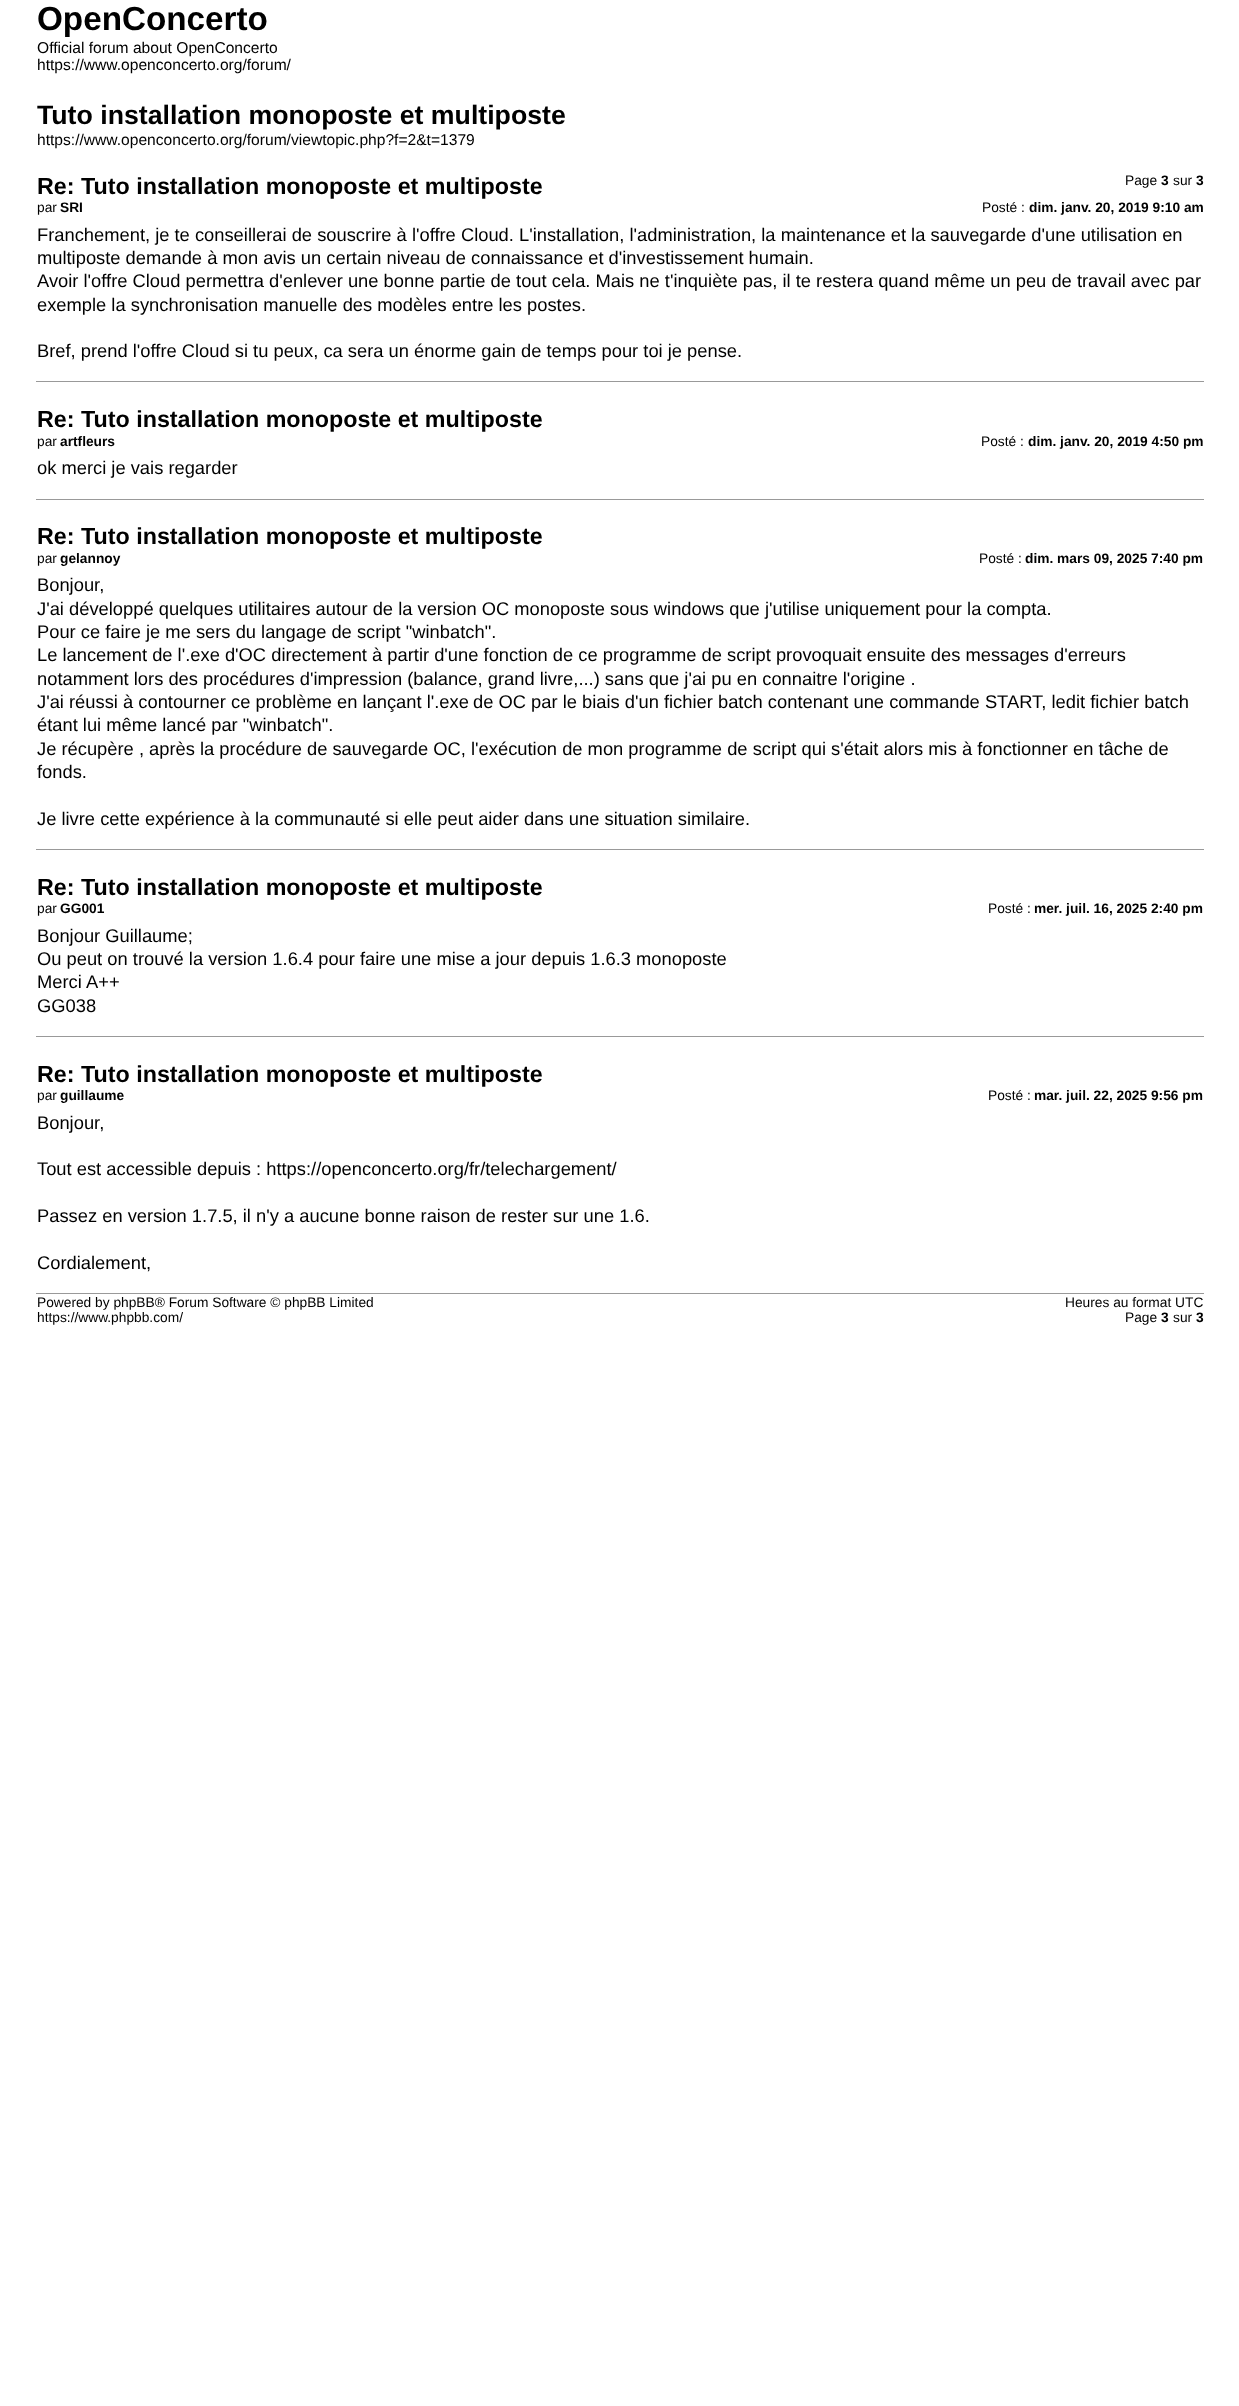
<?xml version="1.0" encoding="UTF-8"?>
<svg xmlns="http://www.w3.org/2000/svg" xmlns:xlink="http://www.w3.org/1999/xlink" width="1239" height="2406">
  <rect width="100%" height="100%" fill="#ffffff" />
  <rect x="36" y="381" width="1168" height="1" fill="#999999" />
  <rect x="36" y="499" width="1168" height="1" fill="#999999" />
  <rect x="36" y="849" width="1168" height="1" fill="#999999" />
  <rect x="36" y="1036" width="1168" height="1" fill="#999999" />
  <rect x="36" y="1293" width="1168" height="1" fill="#999999" />
  <text x="37" y="30" style="font-family: Liberation Sans; font-size: 33.25px; font-weight: bold; fill: #000000">OpenConcerto</text>
  <text x="37" y="53" style="font-family: Liberation Sans; font-size: 15.6px; fill: #000000">Official forum about OpenConcerto</text>
  <text x="37" y="70" style="font-family: Liberation Sans; font-size: 15.6px; fill: #000000">https://www.openconcerto.org/forum/</text>
  <text x="37" y="124" style="font-family: Liberation Sans; font-size: 26.7px; font-weight: bold; fill: #000000">Tuto installation monoposte et multiposte</text>
  <text x="37" y="145" style="font-family: Liberation Sans; font-size: 15.6px; fill: #000000">https://www.openconcerto.org/forum/viewtopic.php?f=2&amp;t=1379</text>
  <text x="1125" y="185" style="font-family: Liberation Sans; font-size: 13.75px; fill: #000000">Page</text>
  <text x="1161" y="185" style="font-family: Liberation Sans; font-size: 13.75px; font-weight: bold; fill: #000000">3</text>
  <text x="1173" y="185" style="font-family: Liberation Sans; font-size: 13.75px; fill: #000000">sur</text>
  <text x="1196" y="185" style="font-family: Liberation Sans; font-size: 13.75px; font-weight: bold; fill: #000000">3</text>
  <text x="37" y="194" style="font-family: Liberation Sans; font-size: 23.3px; font-weight: bold; fill: #000000">Re: Tuto installation monoposte et multiposte</text>
  <text x="37" y="212" style="font-family: Liberation Sans; font-size: 13.75px; fill: #000000">par</text>
  <text x="60" y="212" style="font-family: Liberation Sans; font-size: 13.75px; font-weight: bold; fill: #000000">SRI</text>
  <text x="982" y="212" style="font-family: Liberation Sans; font-size: 13.75px; fill: #000000">Posté :</text>
  <text x="1029" y="212" style="font-family: Liberation Sans; font-size: 13.75px; font-weight: bold; fill: #000000">dim. janv. 20, 2019 9:10 am</text>
  <text x="37" y="241" style="font-family: Liberation Sans; font-size: 18.33px; fill: #000000">Franchement, je te conseillerai de souscrire à l'offre Cloud. L'installation, l'administration, la maintenance et la sauvegarde d'une utilisation en</text>
  <text x="37" y="264" style="font-family: Liberation Sans; font-size: 18.33px; fill: #000000">multiposte demande à mon avis un certain niveau de connaissance et d'investissement humain.</text>
  <text x="37" y="287" style="font-family: Liberation Sans; font-size: 18.33px; fill: #000000">Avoir l'offre Cloud permettra d'enlever une bonne partie de tout cela. Mais ne t'inquiète pas, il te restera quand même un peu de travail avec par</text>
  <text x="37" y="311" style="font-family: Liberation Sans; font-size: 18.33px; fill: #000000">exemple la synchronisation manuelle des modèles entre les postes.</text>
  <text x="37" y="357" style="font-family: Liberation Sans; font-size: 18.33px; fill: #000000">Bref, prend l'offre Cloud si tu peux, ca sera un énorme gain de temps pour toi je pense.</text>
  <text x="37" y="427" style="font-family: Liberation Sans; font-size: 23.3px; font-weight: bold; fill: #000000">Re: Tuto installation monoposte et multiposte</text>
  <text x="37" y="446" style="font-family: Liberation Sans; font-size: 13.75px; fill: #000000">par</text>
  <text x="60" y="446" style="font-family: Liberation Sans; font-size: 13.75px; font-weight: bold; fill: #000000">artfleurs</text>
  <text x="981" y="446" style="font-family: Liberation Sans; font-size: 13.75px; fill: #000000">Posté :</text>
  <text x="1028" y="446" style="font-family: Liberation Sans; font-size: 13.75px; font-weight: bold; fill: #000000">dim. janv. 20, 2019 4:50 pm</text>
  <text x="37" y="474" style="font-family: Liberation Sans; font-size: 18.33px; fill: #000000">ok merci je vais regarder</text>
  <text x="37" y="544" style="font-family: Liberation Sans; font-size: 23.3px; font-weight: bold; fill: #000000">Re: Tuto installation monoposte et multiposte</text>
  <text x="37" y="563" style="font-family: Liberation Sans; font-size: 13.75px; fill: #000000">par</text>
  <text x="60" y="563" style="font-family: Liberation Sans; font-size: 13.75px; font-weight: bold; fill: #000000">gelannoy</text>
  <text x="979" y="563" style="font-family: Liberation Sans; font-size: 13.75px; fill: #000000">Posté :</text>
  <text x="1025" y="563" style="font-family: Liberation Sans; font-size: 13.75px; font-weight: bold; fill: #000000">dim. mars 09, 2025 7:40 pm</text>
  <text x="37" y="591" style="font-family: Liberation Sans; font-size: 18.33px; fill: #000000">Bonjour,</text>
  <text x="37" y="615" style="font-family: Liberation Sans; font-size: 18.33px; fill: #000000">J'ai développé quelques utilitaires autour de la version OC monoposte sous windows que j'utilise uniquement pour la compta.</text>
  <text x="37" y="638" style="font-family: Liberation Sans; font-size: 18.33px; fill: #000000">Pour ce faire je me sers du langage de script "winbatch".</text>
  <text x="37" y="661" style="font-family: Liberation Sans; font-size: 18.33px; fill: #000000">Le lancement de l'.exe d'OC directement à partir d'une fonction de ce programme de script provoquait ensuite des messages d'erreurs</text>
  <text x="37" y="685" style="font-family: Liberation Sans; font-size: 18.33px; fill: #000000">notamment lors des procédures d'impression (balance, grand livre,...) sans que j'ai pu en connaitre l'origine .</text>
  <text x="37" y="708" style="font-family: Liberation Sans; font-size: 18.33px; fill: #000000">J'ai réussi à contourner ce problème en lançant l'.exe</text>
  <text x="473" y="708" style="font-family: Liberation Sans; font-size: 18.33px; fill: #000000">de OC par le biais d'un fichier batch contenant une commande START, ledit fichier batch</text>
  <text x="37" y="731" style="font-family: Liberation Sans; font-size: 18.33px; fill: #000000">étant lui même lancé par "winbatch".</text>
  <text x="37" y="755" style="font-family: Liberation Sans; font-size: 18.33px; fill: #000000">Je récupère , après la procédure de sauvegarde OC, l'exécution de mon programme de script qui s'était alors mis à fonctionner en tâche de</text>
  <text x="37" y="778" style="font-family: Liberation Sans; font-size: 18.33px; fill: #000000">fonds.</text>
  <text x="37" y="825" style="font-family: Liberation Sans; font-size: 18.33px; fill: #000000">Je livre cette expérience à la communauté si elle peut aider dans une situation similaire.</text>
  <text x="37" y="895" style="font-family: Liberation Sans; font-size: 23.3px; font-weight: bold; fill: #000000">Re: Tuto installation monoposte et multiposte</text>
  <text x="37" y="913" style="font-family: Liberation Sans; font-size: 13.75px; fill: #000000">par</text>
  <text x="60" y="913" style="font-family: Liberation Sans; font-size: 13.75px; font-weight: bold; fill: #000000">GG001</text>
  <text x="988" y="913" style="font-family: Liberation Sans; font-size: 13.75px; fill: #000000">Posté :</text>
  <text x="1034" y="913" style="font-family: Liberation Sans; font-size: 13.75px; font-weight: bold; fill: #000000">mer. juil. 16, 2025 2:40 pm</text>
  <text x="37" y="942" style="font-family: Liberation Sans; font-size: 18.33px; fill: #000000">Bonjour Guillaume;</text>
  <text x="37" y="965" style="font-family: Liberation Sans; font-size: 18.33px; fill: #000000">Ou peut on trouvé la version 1.6.4 pour faire une mise a jour depuis 1.6.3 monoposte</text>
  <text x="37" y="988" style="font-family: Liberation Sans; font-size: 18.33px; fill: #000000">Merci</text>
  <text x="86" y="988" style="font-family: Liberation Sans; font-size: 18.33px; fill: #000000">A++</text>
  <text x="37" y="1012" style="font-family: Liberation Sans; font-size: 18.33px; fill: #000000">GG038</text>
  <text x="37" y="1082" style="font-family: Liberation Sans; font-size: 23.3px; font-weight: bold; fill: #000000">Re: Tuto installation monoposte et multiposte</text>
  <text x="37" y="1100" style="font-family: Liberation Sans; font-size: 13.75px; fill: #000000">par</text>
  <text x="60" y="1100" style="font-family: Liberation Sans; font-size: 13.75px; font-weight: bold; fill: #000000">guillaume</text>
  <text x="988" y="1100" style="font-family: Liberation Sans; font-size: 13.75px; fill: #000000">Posté :</text>
  <text x="1034" y="1100" style="font-family: Liberation Sans; font-size: 13.75px; font-weight: bold; fill: #000000">mar. juil. 22, 2025 9:56 pm</text>
  <text x="37" y="1129" style="font-family: Liberation Sans; font-size: 18.33px; fill: #000000">Bonjour,</text>
  <text x="37" y="1175" style="font-family: Liberation Sans; font-size: 18.33px; fill: #000000">Tout est accessible depuis : https://openconcerto.org/fr/telechargement/</text>
  <text x="37" y="1222" style="font-family: Liberation Sans; font-size: 18.33px; fill: #000000">Passez en version 1.7.5, il n'y a aucune bonne raison de rester sur une 1.6.</text>
  <text x="37" y="1269" style="font-family: Liberation Sans; font-size: 18.33px; fill: #000000">Cordialement,</text>
  <text x="37" y="1307" style="font-family: Liberation Sans; font-size: 13.75px; fill: #000000">Powered by phpBB® Forum Software © phpBB Limited</text>
  <text x="37" y="1322" style="font-family: Liberation Sans; font-size: 13.75px; fill: #000000">https://www.phpbb.com/</text>
  <text x="1065" y="1307" style="font-family: Liberation Sans; font-size: 13.75px; fill: #000000">Heures au format UTC</text>
  <text x="1125" y="1322" style="font-family: Liberation Sans; font-size: 13.75px; fill: #000000">Page</text>
  <text x="1161" y="1322" style="font-family: Liberation Sans; font-size: 13.75px; font-weight: bold; fill: #000000">3</text>
  <text x="1173" y="1322" style="font-family: Liberation Sans; font-size: 13.75px; fill: #000000">sur</text>
  <text x="1196" y="1322" style="font-family: Liberation Sans; font-size: 13.75px; font-weight: bold; fill: #000000">3</text>
</svg>
